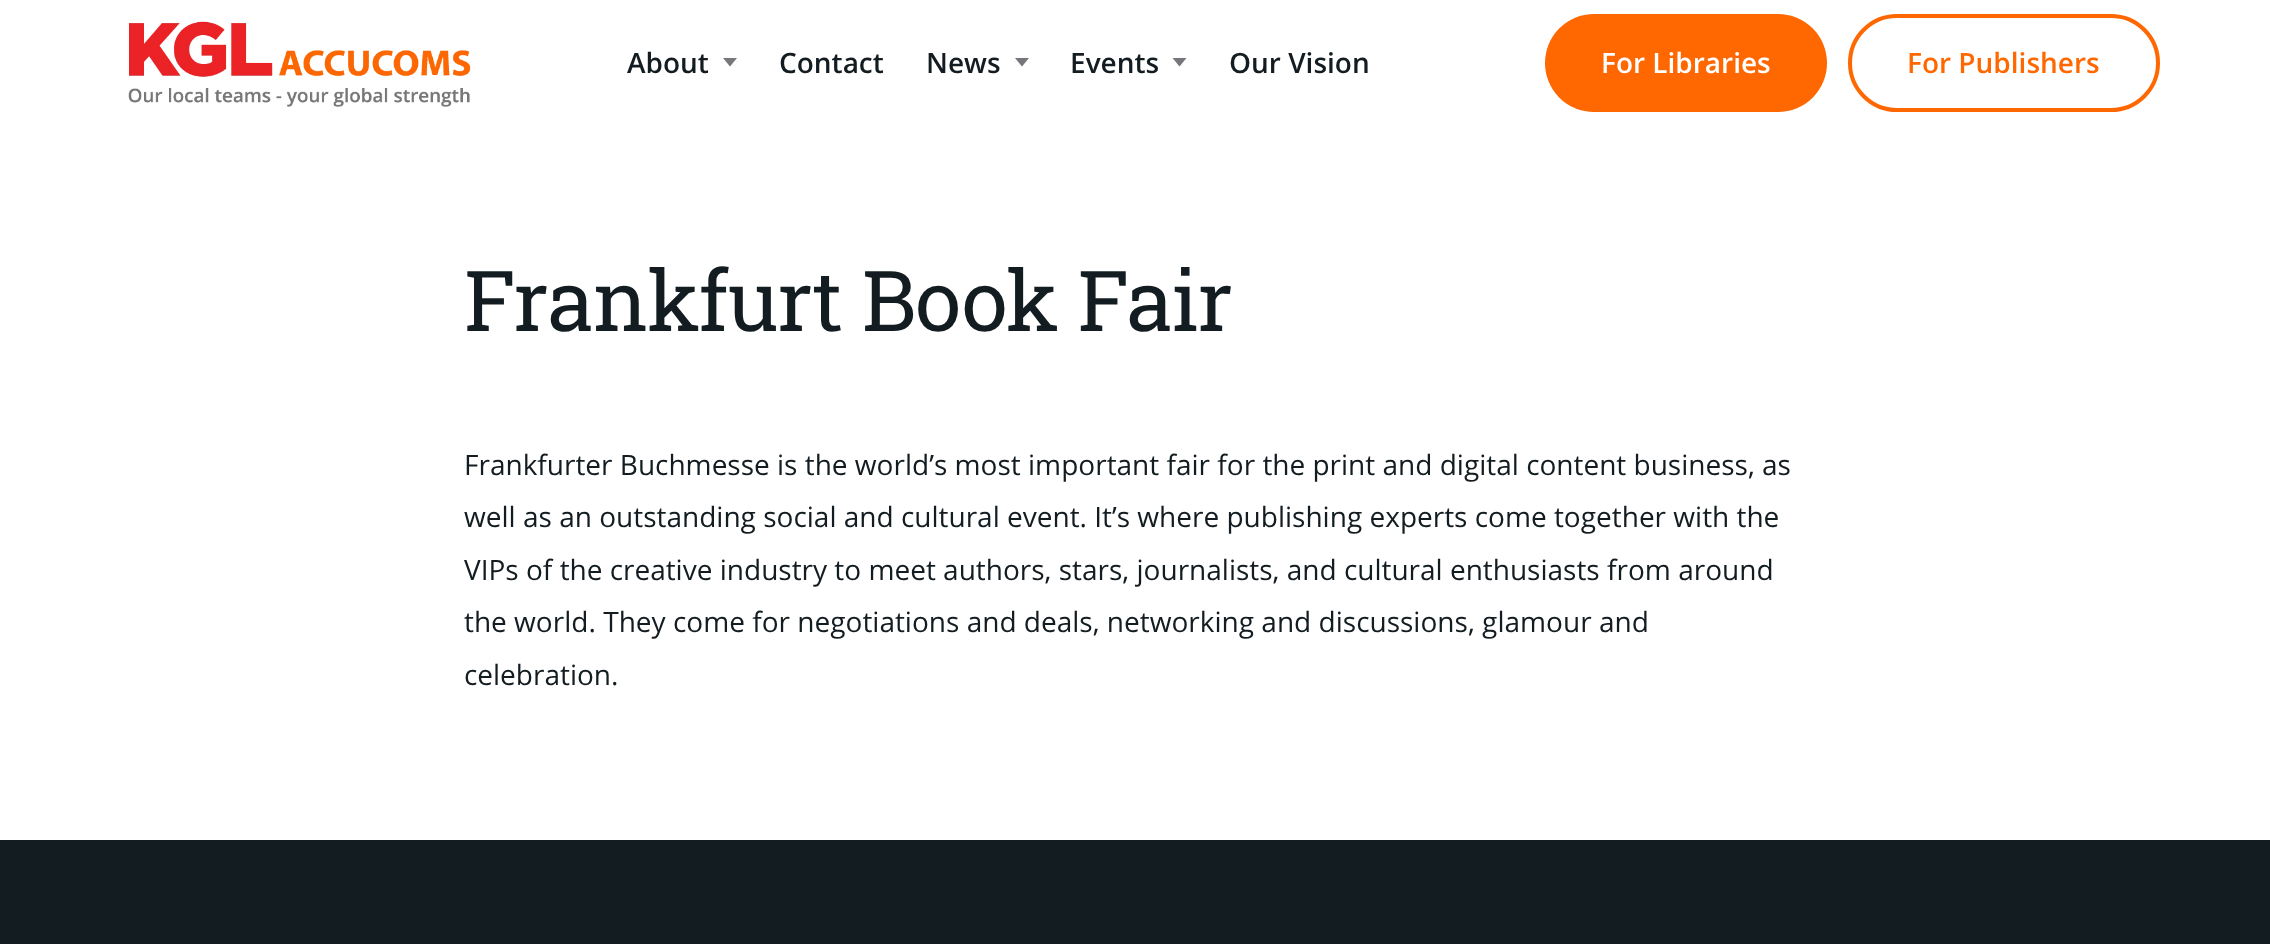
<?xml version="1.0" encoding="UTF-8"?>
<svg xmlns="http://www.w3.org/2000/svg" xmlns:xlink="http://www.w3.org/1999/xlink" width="2270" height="944">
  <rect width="100%" height="100%" fill="#ffffff" />
  <image x="128" y="21" width="343" height="86" xlink:href="image1.png" />
  <path d="M 723 58 l 7 8.5 l 7 -8.5 z" fill="#77767a" />
  <path d="M 1015 58 l 7 8.5 l 7 -8.5 z" fill="#77767a" />
  <path d="M 1172.5 58 l 7 8.5 l 7 -8.5 z" fill="#77767a" />
  <rect x="1545" y="14" width="282" height="98" rx="49" fill="#ff6700" />
  <rect x="1850" y="16" width="308" height="94" rx="47" fill="none" stroke="#ff6700" stroke-width="4" />
  <rect y="840" width="2270" height="104" fill="#131c20" />
  <text x="627" y="73" style="font-family: Open Sans; font-size: 28px; font-weight: 600; fill: #131c20">About</text>
  <text x="779" y="73" style="font-family: Open Sans; font-size: 28px; font-weight: 600; fill: #131c20">Contact</text>
  <text x="926" y="73" style="font-family: Open Sans; font-size: 28px; font-weight: 600; fill: #131c20">News</text>
  <text x="1070" y="73" style="font-family: Open Sans; font-size: 28px; font-weight: 600; fill: #131c20">Events</text>
  <text x="1229" y="73" style="font-family: Open Sans; font-size: 28px; font-weight: 600; fill: #131c20">Our Vision</text>
  <text x="1601" y="73" style="font-family: Open Sans; font-size: 28px; font-weight: 600; fill: #ffffff">For Libraries</text>
  <text x="1907" y="73" style="font-family: Open Sans; font-size: 28px; font-weight: 600; fill: #ff6700">For Publishers</text>
  <text x="464" y="331" style="font-family: Roboto Slab; font-size: 84px; letter-spacing: -1px; fill: #131c20">Frankfurt Book Fair</text>
  <text x="464" y="475" style="font-family: Open Sans; font-size: 28px; fill: #131c20">Frankfurter Buchmesse is the world’s most important fair for the print and digital content business, as</text>
  <text x="464" y="527" style="font-family: Open Sans; font-size: 28px; fill: #131c20">well as an outstanding social and cultural event. It’s where publishing experts come together with the</text>
  <text x="464" y="580" style="font-family: Open Sans; font-size: 28px; fill: #131c20">VIPs of the creative industry to meet authors, stars, journalists, and cultural enthusiasts from around</text>
  <text x="464" y="632" style="font-family: Open Sans; font-size: 28px; fill: #131c20">the world. They come for negotiations and deals, networking and discussions, glamour and</text>
  <text x="464" y="685" style="font-family: Open Sans; font-size: 28px; fill: #131c20">celebration.</text>
</svg>
